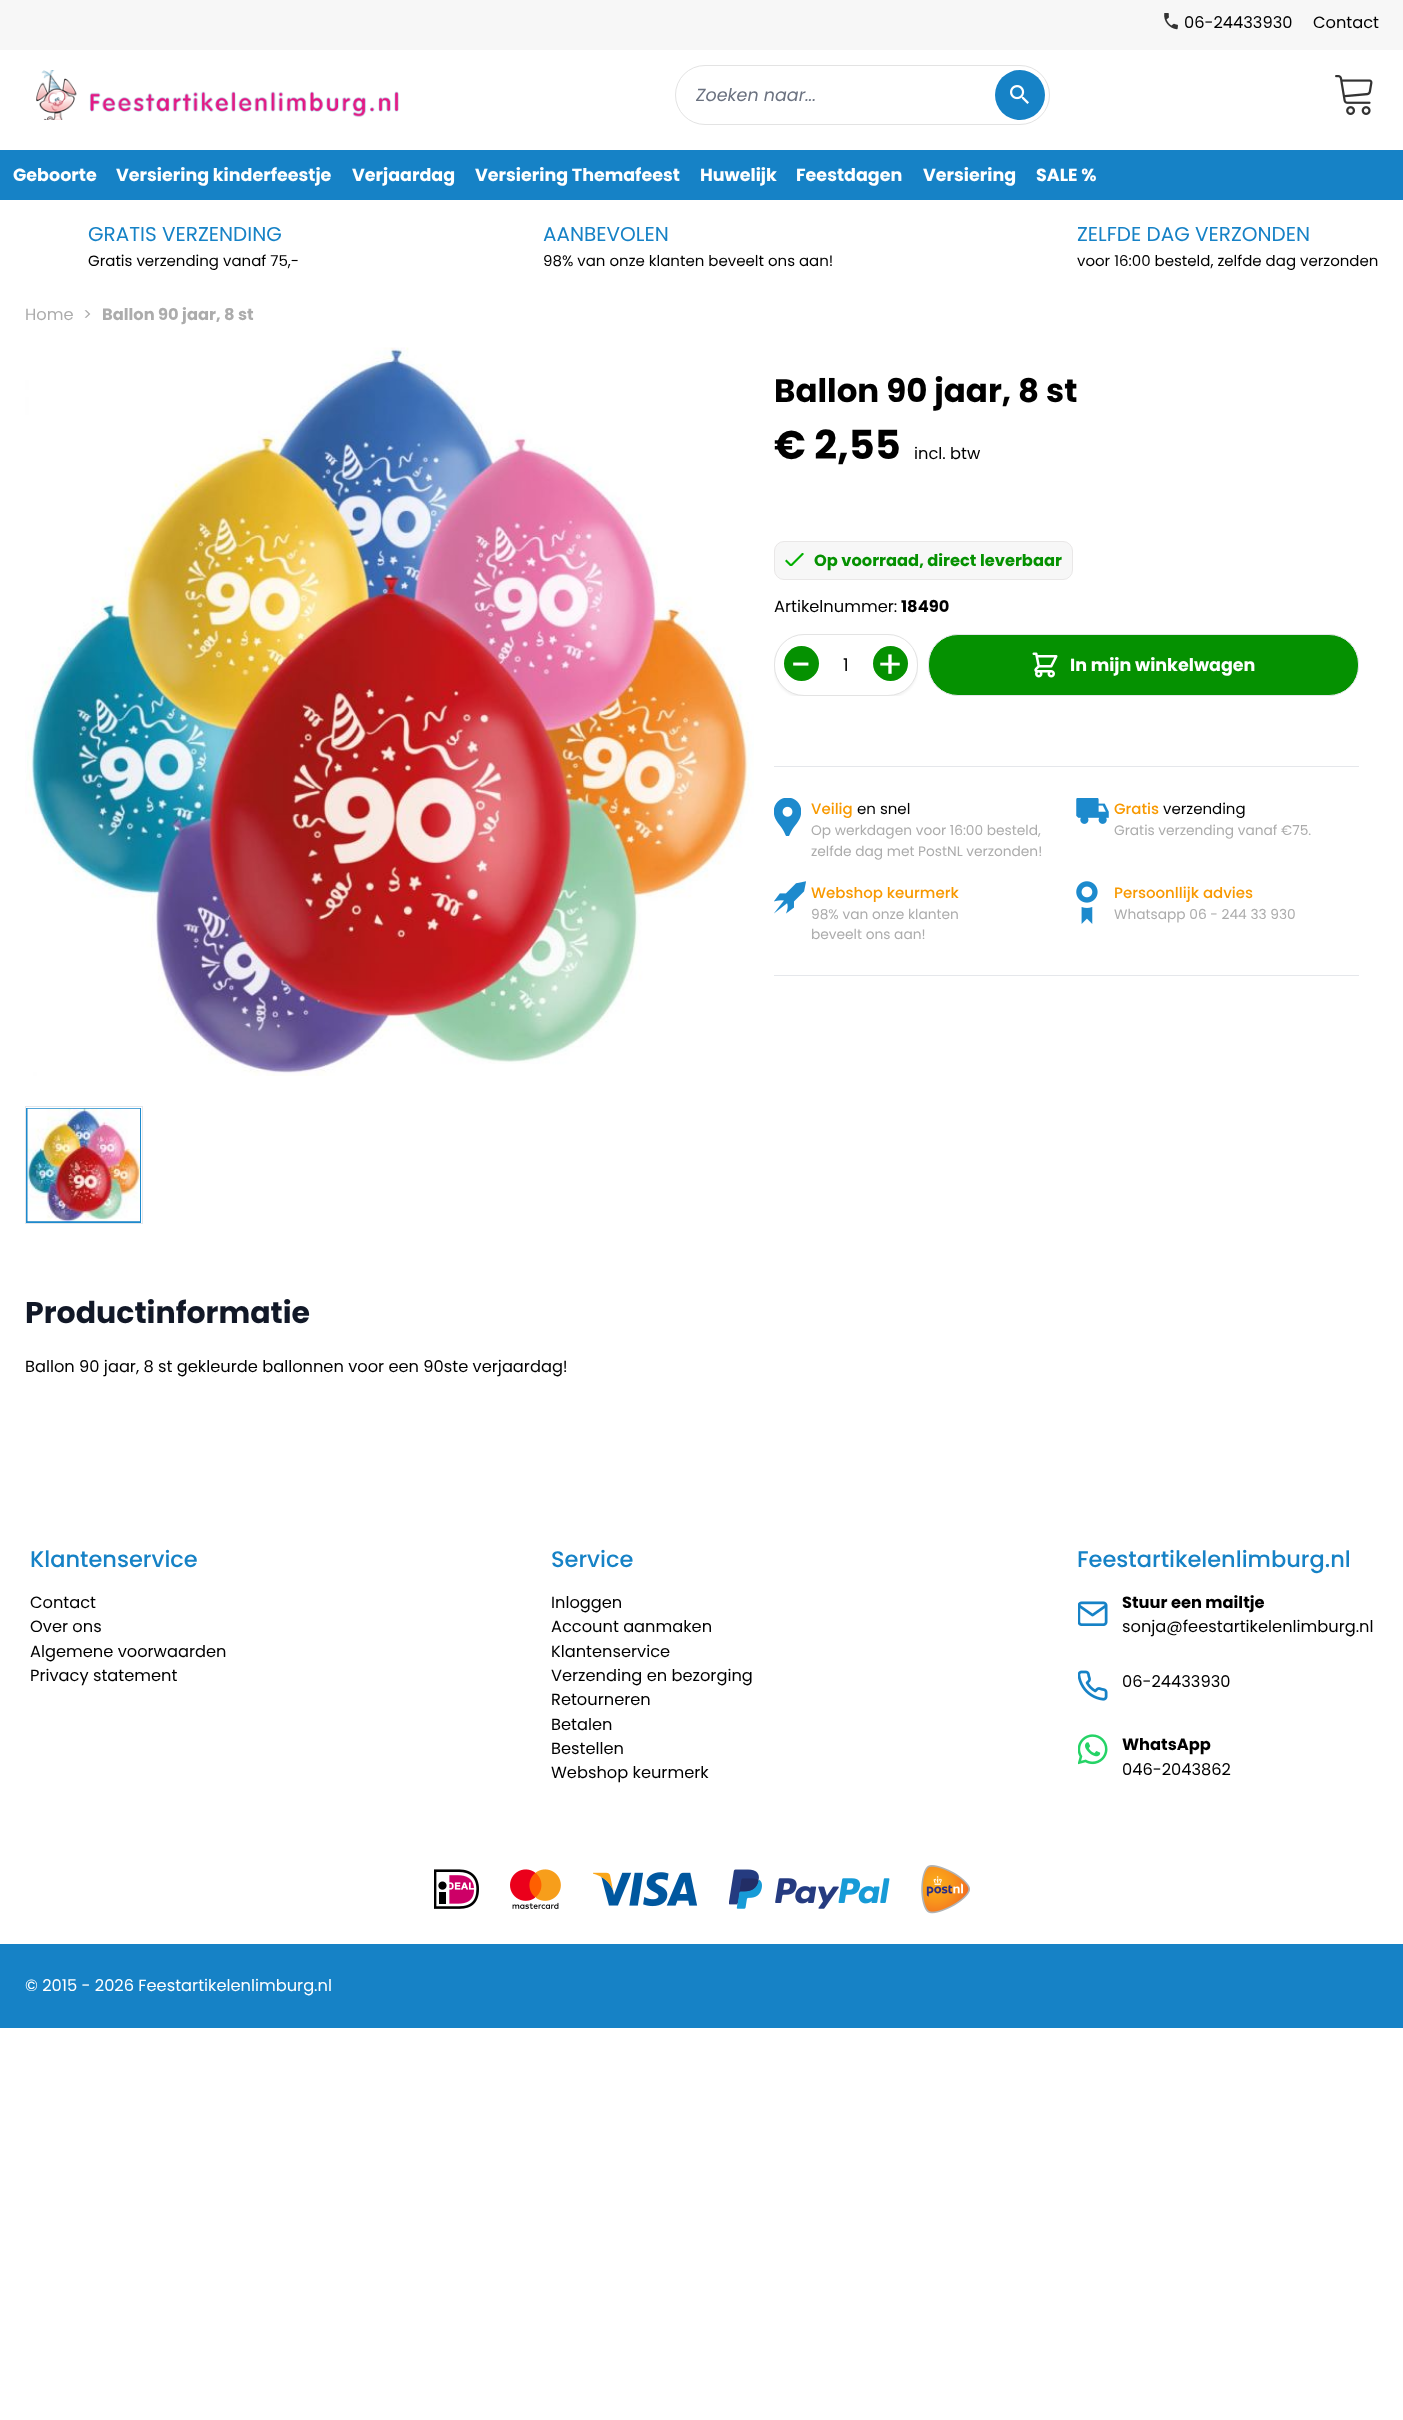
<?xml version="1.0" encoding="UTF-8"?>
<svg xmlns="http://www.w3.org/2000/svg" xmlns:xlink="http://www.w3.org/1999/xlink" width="1403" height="2420">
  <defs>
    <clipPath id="clip1"><rect x="785" y="553" width="19" height="13" /></clipPath>
    <clipPath id="clip2"><rect x="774" y="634" width="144" height="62" /></clipPath>
  </defs>
  <rect width="100%" height="100%" fill="#ffffff" />
  <rect width="1403" height="50" fill="#f7f7f7" />
  <image x="1164" y="13" width="14" height="17" xlink:href="image1.png" />
  <image x="36" y="70" width="363" height="50" xlink:href="image2.png" />
  <rect x="675.5" y="65.5" width="374" height="59" rx="29.5" fill="none" stroke="#e3e3e3" />
  <circle cx="1020" cy="95" r="25" fill="#1682c6" />
  <image x="1010" y="85" width="19" height="19" xlink:href="image3.png" />
  <image x="1335" y="75" width="38" height="40" xlink:href="image4.png" />
  <rect y="150" width="1403" height="50" fill="#1682c6" />
  <image x="25" y="347" width="729" height="729" xlink:href="image5.png" />
  <rect x="25.5" y="1106.5" width="117" height="117" fill="none" stroke="#e5e7eb" />
  <rect x="26.5" y="1108.5" width="114" height="114" fill="#1682c6" stroke="#1d8acd" />
  <image x="27" y="1108" width="113" height="114" xlink:href="image6.png" />
  <rect x="774.5" y="541.5" width="298" height="38" rx="9.5" fill="#f7f7f7" stroke="#e9e7e7" />
  <g clip-path="url(#clip1)">
    <path d="M 791 564 l 11.5 -11.5 l 1.5 1.5 l -13 13 l -6 -6 l 1.5 -1.5 z" fill="#01b000" />
  </g>
  <g clip-path="url(#clip2)">
    <rect x="774" y="635" width="144" height="63" rx="30" fill="#000000" fill-opacity="0.05" filter="blur(1px)" />
  </g>
  <rect x="774.5" y="634.5" width="143" height="61" rx="29.5" fill="#ffffff" stroke="#e3e3e3" />
  <circle cx="801.5" cy="663.5" r="17.5" fill="#059101" />
  <circle cx="890.5" cy="663.5" r="17.5" fill="#059101" />
  <rect x="928.5" y="634.5" width="430" height="61" rx="29.5" fill="#059101" stroke="#e5e7eb" />
  <image x="1032" y="652" width="26" height="26" xlink:href="image7.png" />
  <rect x="774" y="766" width="585" height="1" fill="#e5e7eb" />
  <rect x="774" y="975" width="585" height="1" fill="#e5e7eb" />
  <image x="774" y="798" width="27" height="38" xlink:href="image8.png" />
  <image x="1076" y="798" width="33" height="26" xlink:href="image9.png" />
  <image x="774" y="881" width="32" height="33" xlink:href="image10.png" />
  <image x="1076" y="881" width="22" height="43" xlink:href="image11.png" />
  <image x="1078" y="1601" width="30" height="25" xlink:href="image12.png" />
  <image x="1078" y="1670" width="30" height="31" xlink:href="image13.png" />
  <image x="1078" y="1734" width="30" height="31" xlink:href="image14.png" />
  <image x="434" y="1869" width="45" height="40" xlink:href="image15.png" />
  <image x="510" y="1869" width="51" height="40" xlink:href="image16.png" />
  <image x="593" y="1872" width="105" height="35" xlink:href="image17.png" />
  <image x="729" y="1869" width="161" height="40" xlink:href="image18.png" />
  <image x="921" y="1865" width="49" height="49" xlink:href="image19.png" />
  <rect y="1944" width="1403" height="84" fill="#1682c6" />
  <text x="1184" y="28" style="font-family: Poppins; font-size: 16.25px; fill: #000000">06-24433930</text>
  <text x="1313" y="28" style="font-family: Poppins; font-size: 16.25px; fill: #000000">Contact</text>
  <text x="696" y="101" style="font-family: Poppins; font-size: 17.5px; font-style: italic; fill: #6b7280">Zoeken naar...</text>
  <text x="13" y="181" style="font-family: Poppins; font-size: 17.5px; font-weight: bold; fill: #ffffff">Geboorte</text>
  <text x="116" y="181" style="font-family: Poppins; font-size: 17.5px; font-weight: bold; fill: #ffffff">Versiering kinderfeestje</text>
  <text x="352" y="181" style="font-family: Poppins; font-size: 17.5px; font-weight: bold; fill: #ffffff">Verjaardag</text>
  <text x="475" y="181" style="font-family: Poppins; font-size: 17.5px; font-weight: bold; fill: #ffffff">Versiering Themafeest</text>
  <text x="700" y="181" style="font-family: Poppins; font-size: 17.5px; font-weight: bold; fill: #ffffff">Huwelijk</text>
  <text x="796" y="181" style="font-family: Poppins; font-size: 17.5px; font-weight: bold; fill: #ffffff">Feestdagen</text>
  <text x="923" y="181" style="font-family: Poppins; font-size: 17.5px; font-weight: bold; fill: #ffffff">Versiering</text>
  <text x="1036" y="181" style="font-family: Poppins; font-size: 17.5px; font-weight: bold; fill: #ffffff">SALE %</text>
  <text x="88" y="241" style="font-family: Poppins; font-size: 20px; fill: #1682c6">GRATIS VERZENDING</text>
  <text x="88" y="266" style="font-family: Poppins; font-size: 15px; fill: #000000">Gratis verzending vanaf 75,-</text>
  <text x="543" y="241" style="font-family: Poppins; font-size: 20px; fill: #1682c6">AANBEVOLEN</text>
  <text x="543" y="266" style="font-family: Poppins; font-size: 15px; fill: #000000">98% van onze klanten beveelt ons aan!</text>
  <text x="1077" y="241" style="font-family: Poppins; font-size: 20px; fill: #1682c6">ZELFDE DAG VERZONDEN</text>
  <text x="1077" y="266" style="font-family: Poppins; font-size: 15px; fill: #000000">voor 16:00 besteld, zelfde dag verzonden</text>
  <text x="25" y="320" style="font-family: Poppins; font-size: 16.25px; fill: #acacac">Home</text>
  <text x="83" y="320" style="font-family: Poppins; font-size: 16.25px; fill: #acacac">&gt;</text>
  <text x="102" y="320" style="font-family: Poppins; font-size: 16.25px; font-weight: bold; fill: #acacac">Ballon 90 jaar, 8 st</text>
  <text x="774" y="402" style="font-family: Poppins; font-size: 32.5px; font-weight: bold; fill: #000000">Ballon 90 jaar, 8 st</text>
  <text x="774" y="459" style="font-family: Poppins; font-size: 40px; font-weight: bold; fill: #000000">€ 2,55</text>
  <text x="914" y="459" style="font-family: Poppins; font-size: 16.25px; fill: #000000">incl. btw</text>
  <text x="814" y="566" style="font-family: Poppins; font-size: 16.25px; font-weight: bold; fill: #059101">Op voorraad, direct leverbaar</text>
  <text x="774" y="612" style="font-family: Poppins; font-size: 16.25px; fill: #000000">Artikelnummer:</text>
  <text x="901" y="612" style="font-family: Poppins; font-size: 16.25px; font-weight: bold; fill: #000000">18490</text>
  <text x="791" y="678" style="font-family: Poppins; font-size: 38px; fill: #ffffff">-</text>
  <text x="843" y="671" style="font-family: Poppins; font-size: 17.5px; fill: #000000">1</text>
  <text x="877" y="678" style="font-family: Poppins; font-size: 38px; fill: #ffffff">+</text>
  <text x="1070" y="671" style="font-family: Poppins; font-size: 17.5px; font-weight: bold; fill: #ffffff">In mijn winkelwagen</text>
  <text x="811" y="814" style="font-family: Poppins; font-size: 15px; font-weight: 500; fill: #f89900">Veilig</text>
  <text x="857" y="814" style="font-family: Poppins; font-size: 15px; fill: #000000">en snel</text>
  <text x="811" y="835" style="font-family: Poppins; font-size: 13.75px; fill: #acacac">Op werkdagen voor 16:00 besteld,</text>
  <text x="811" y="856" style="font-family: Poppins; font-size: 13.75px; fill: #acacac">zelfde dag met PostNL verzonden!</text>
  <text x="1114" y="814" style="font-family: Poppins; font-size: 15px; font-weight: 500; fill: #f89900">Gratis</text>
  <text x="1163" y="814" style="font-family: Poppins; font-size: 15px; fill: #000000">verzending</text>
  <text x="1114" y="835" style="font-family: Poppins; font-size: 13.75px; fill: #acacac">Gratis verzending vanaf €75.</text>
  <text x="811" y="898" style="font-family: Poppins; font-size: 15px; font-weight: 500; fill: #f89900">Webshop keurmerk</text>
  <text x="811" y="919" style="font-family: Poppins; font-size: 13.75px; fill: #acacac">98% van onze klanten</text>
  <text x="811" y="939" style="font-family: Poppins; font-size: 13.75px; fill: #acacac">beveelt ons aan!</text>
  <text x="1114" y="898" style="font-family: Poppins; font-size: 15px; font-weight: 500; fill: #f89900">Persoonllijk advies</text>
  <text x="1114" y="919" style="font-family: Poppins; font-size: 13.75px; fill: #acacac">Whatsapp 06 - 244 33 930</text>
  <text x="25" y="1323" style="font-family: Poppins; font-size: 30px; font-weight: bold; fill: #111827">Productinformatie</text>
  <text x="25" y="1372" style="font-family: Poppins; font-size: 16.25px; fill: #000000">Ballon 90 jaar, 8 st gekleurde ballonnen voor een 90ste verjaardag!</text>
  <text x="30" y="1567" style="font-family: Poppins; font-size: 22.5px; font-weight: 500; fill: #1682c6">Klantenservice</text>
  <text x="30" y="1608" style="font-family: Poppins; font-size: 16.25px; fill: #000000">Contact</text>
  <text x="30" y="1632" style="font-family: Poppins; font-size: 16.25px; fill: #000000">Over ons</text>
  <text x="30" y="1657" style="font-family: Poppins; font-size: 16.25px; fill: #000000">Algemene voorwaarden</text>
  <text x="30" y="1681" style="font-family: Poppins; font-size: 16.25px; fill: #000000">Privacy statement</text>
  <text x="551" y="1567" style="font-family: Poppins; font-size: 22.5px; font-weight: 500; fill: #1682c6">Service</text>
  <text x="551" y="1608" style="font-family: Poppins; font-size: 16.25px; fill: #000000">Inloggen</text>
  <text x="551" y="1632" style="font-family: Poppins; font-size: 16.25px; fill: #000000">Account aanmaken</text>
  <text x="551" y="1657" style="font-family: Poppins; font-size: 16.25px; fill: #000000">Klantenservice</text>
  <text x="551" y="1681" style="font-family: Poppins; font-size: 16.25px; fill: #000000">Verzending en bezorging</text>
  <text x="551" y="1705" style="font-family: Poppins; font-size: 16.25px; fill: #000000">Retourneren</text>
  <text x="551" y="1730" style="font-family: Poppins; font-size: 16.25px; fill: #000000">Betalen</text>
  <text x="551" y="1754" style="font-family: Poppins; font-size: 16.25px; fill: #000000">Bestellen</text>
  <text x="551" y="1778" style="font-family: Poppins; font-size: 16.25px; fill: #000000">Webshop keurmerk</text>
  <text x="1077" y="1567" style="font-family: Poppins; font-size: 22.5px; font-weight: 500; fill: #1682c6">Feestartikelenlimburg.nl</text>
  <text x="1122" y="1608" style="font-family: Poppins; font-size: 16.25px; font-weight: bold; fill: #000000">Stuur een mailtje</text>
  <text x="1122" y="1632" style="font-family: Poppins; font-size: 16.25px; fill: #000000">sonja@feestartikelenlimburg.nl</text>
  <text x="1122" y="1687" style="font-family: Poppins; font-size: 16.25px; fill: #000000">06-24433930</text>
  <text x="1122" y="1750" style="font-family: Poppins; font-size: 16.25px; font-weight: bold; fill: #000000">WhatsApp</text>
  <text x="1122" y="1775" style="font-family: Poppins; font-size: 16.25px; fill: #000000">046-2043862</text>
  <text x="25" y="1991" style="font-family: Poppins; font-size: 16.25px; fill: #ffffff">© 2015 - 2026 Feestartikelenlimburg.nl</text>
</svg>
